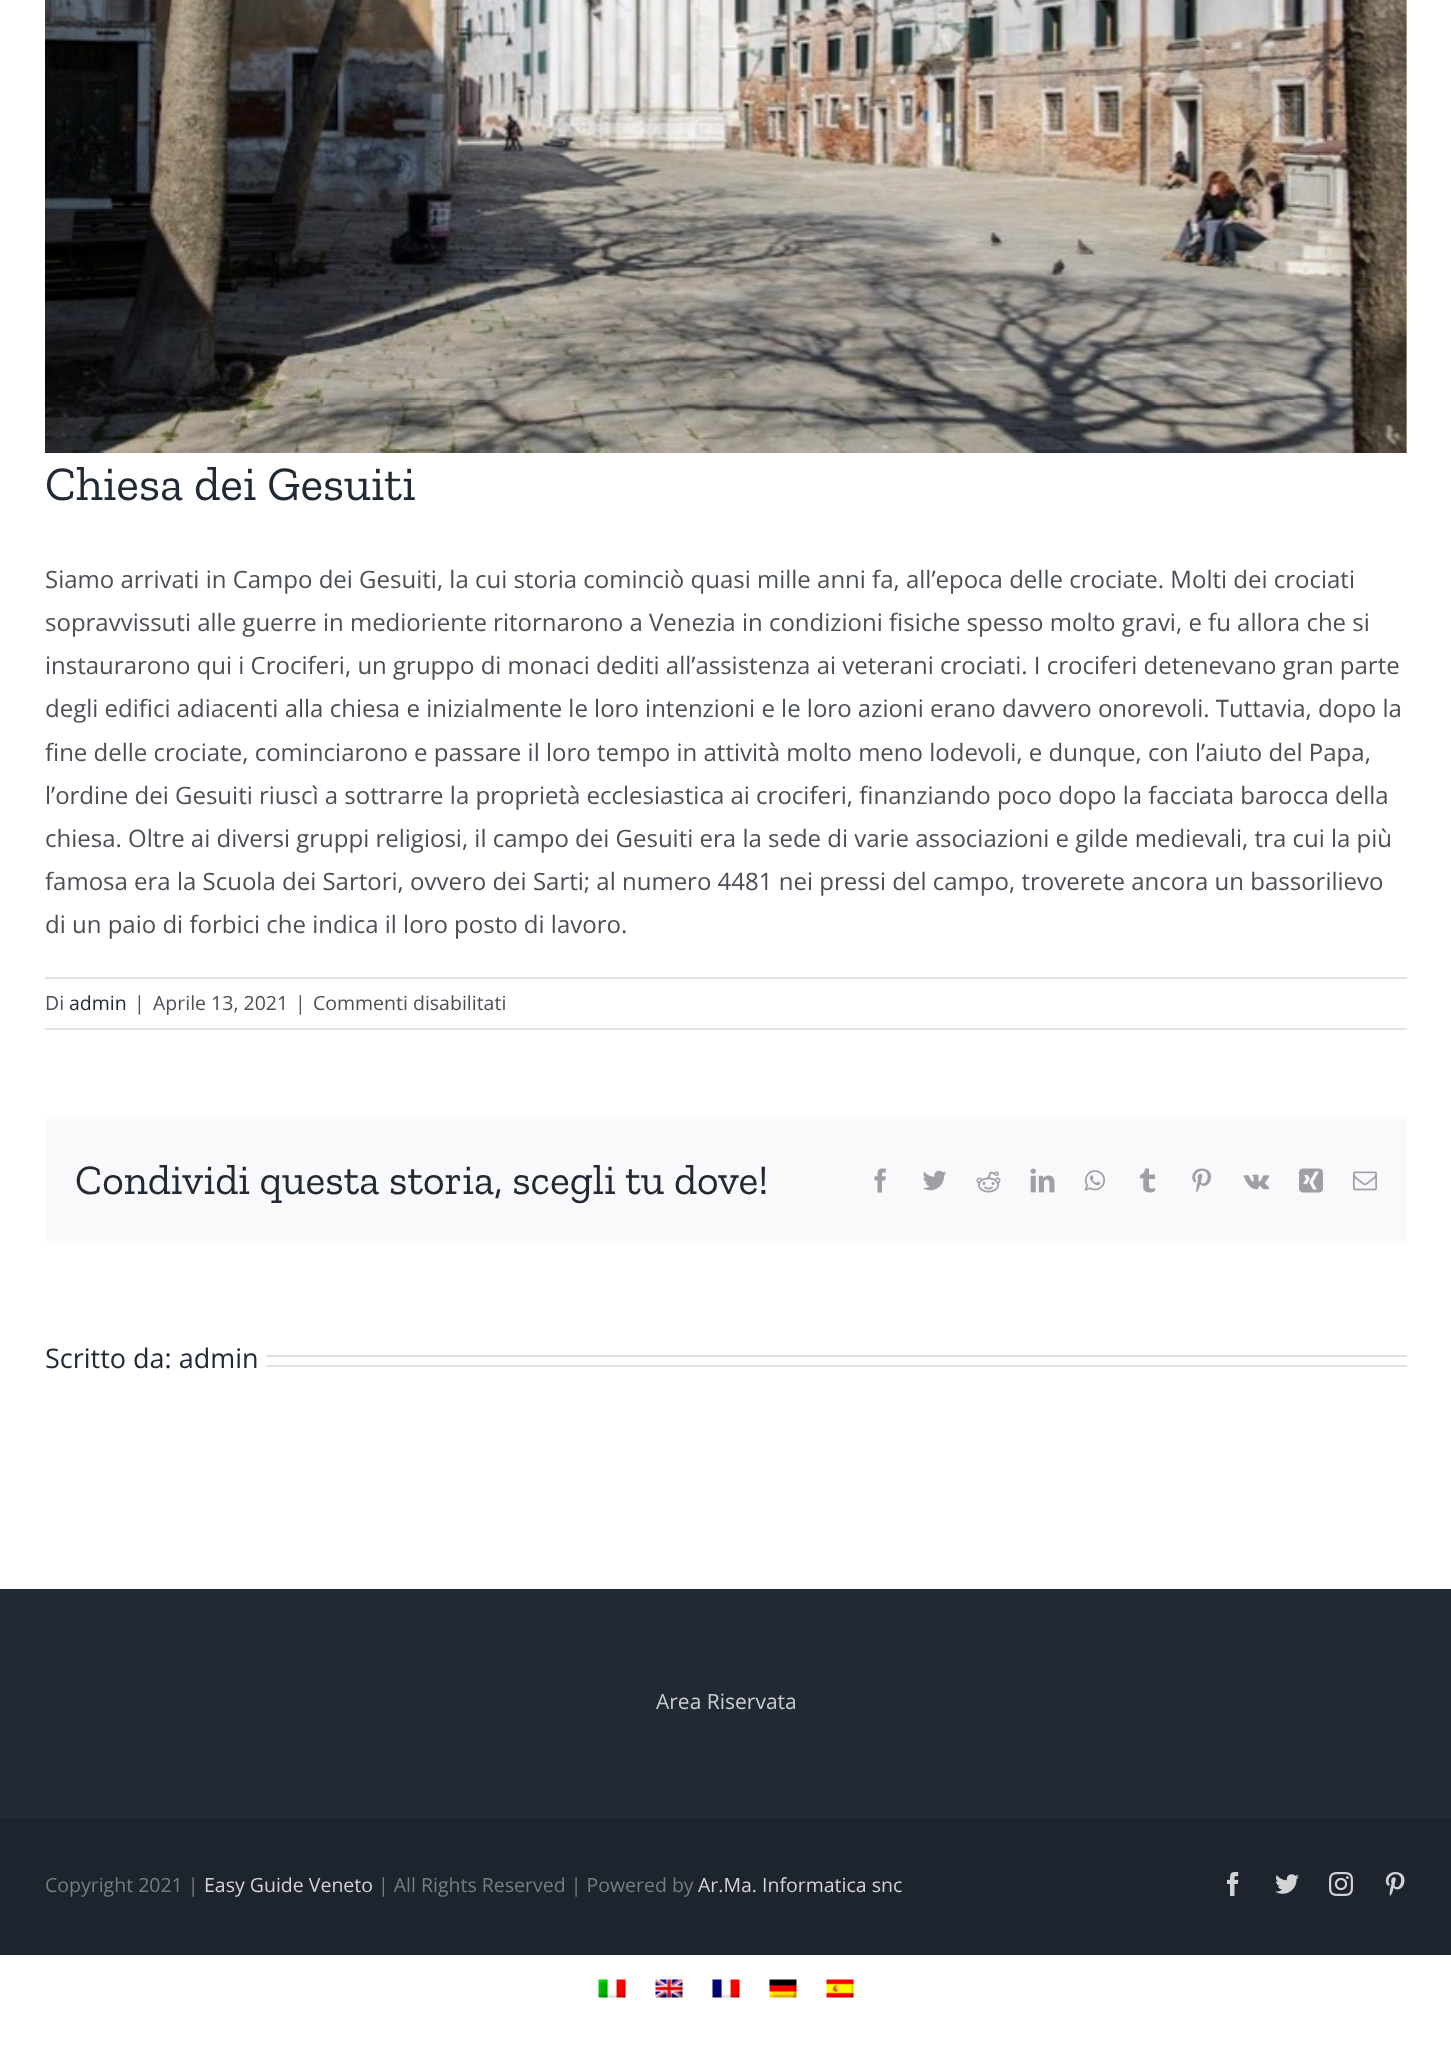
<?xml version="1.0" encoding="UTF-8"?>
<svg xmlns="http://www.w3.org/2000/svg" xmlns:xlink="http://www.w3.org/1999/xlink" width="1451" height="2065">
  <rect width="100%" height="100%" fill="#ffffff" />
  <image x="45" y="0" width="1362" height="453" xlink:href="image1.png" />
  <rect x="45" y="977" width="1362" height="2" fill="#e2e2e2" />
  <rect x="45" y="1028" width="1362" height="2" fill="#e2e2e2" />
  <rect x="45" y="1119" width="1362" height="122" fill="#f9f9fb" />
  <image x="874" y="1168" width="12" height="25" xlink:href="image2.png" />
  <image x="922" y="1170" width="25" height="21" xlink:href="image3.png" />
  <image x="976" y="1171" width="25" height="22" xlink:href="image4.png" />
  <image x="1030" y="1168" width="25" height="25" xlink:href="image5.png" />
  <image x="1084" y="1170" width="22" height="21" xlink:href="image6.png" />
  <image x="1140" y="1168" width="15" height="25" xlink:href="image7.png" />
  <image x="1192" y="1168" width="19" height="25" xlink:href="image8.png" />
  <image x="1243" y="1174" width="27" height="16" xlink:href="image9.png" />
  <image x="1299" y="1168" width="24" height="25" xlink:href="image10.png" />
  <image x="1353" y="1171" width="24" height="20" xlink:href="image11.png" />
  <rect x="266" y="1355" width="1141" height="2" fill="#e2e2e2" />
  <rect x="266" y="1365" width="1141" height="2" fill="#e2e2e2" />
  <rect y="1589" width="1451" height="229" fill="#212934" />
  <rect y="1818" width="1451" height="137" fill="#1d242d" />
  <image x="1227" y="1872" width="12" height="24" xlink:href="image12.png" />
  <image x="1275" y="1874" width="24" height="20" xlink:href="image13.png" />
  <image x="1329" y="1872" width="24" height="24" xlink:href="image14.png" />
  <image x="1385" y="1872" width="20" height="24" xlink:href="image15.png" />
  <image x="598" y="1979" width="28" height="19" xlink:href="image16.png" />
  <image x="655" y="1979" width="28" height="19" xlink:href="image17.png" />
  <image x="712" y="1979" width="28" height="19" xlink:href="image18.png" />
  <image x="769" y="1979" width="28" height="19" xlink:href="image19.png" />
  <image x="826" y="1979" width="28" height="19" xlink:href="image20.png" />
  <text x="45" y="500" style="font-family: Zilla Slab; font-size: 48px; fill: #212934">Chiesa dei Gesuiti</text>
  <text x="45" y="588" style="font-family: Open Sans; font-size: 24px; fill: #4a4e57">Siamo arrivati in Campo dei Gesuiti, la cui storia cominciò quasi mille anni fa, all’epoca delle crociate. Molti dei crociati</text>
  <text x="45" y="631" style="font-family: Open Sans; font-size: 24px; fill: #4a4e57">sopravvissuti alle guerre in medioriente ritornarono a Venezia in condizioni fisiche spesso molto gravi, e fu allora che si</text>
  <text x="45" y="674" style="font-family: Open Sans; font-size: 24px; fill: #4a4e57">instaurarono qui i Crociferi, un gruppo di monaci dediti all’assistenza ai veterani crociati. I crociferi detenevano gran parte</text>
  <text x="45" y="717" style="font-family: Open Sans; font-size: 24px; fill: #4a4e57">degli edifici adiacenti alla chiesa e inizialmente le loro intenzioni e le loro azioni erano davvero onorevoli. Tuttavia, dopo la</text>
  <text x="45" y="761" style="font-family: Open Sans; font-size: 24px; fill: #4a4e57">fine delle crociate, cominciarono e passare il loro tempo in attività molto meno lodevoli, e dunque, con l’aiuto del Papa,</text>
  <text x="45" y="804" style="font-family: Open Sans; font-size: 24px; fill: #4a4e57">l’ordine dei Gesuiti riuscì a sottrarre la proprietà ecclesiastica ai crociferi, finanziando poco dopo la facciata barocca della</text>
  <text x="45" y="847" style="font-family: Open Sans; font-size: 24px; fill: #4a4e57">chiesa. Oltre ai diversi gruppi religiosi, il campo dei Gesuiti era la sede di varie associazioni e gilde medievali, tra cui la più</text>
  <text x="45" y="890" style="font-family: Open Sans; font-size: 24px; fill: #4a4e57">famosa era la Scuola dei Sartori, ovvero dei Sarti; al numero 4481 nei pressi del campo, troverete ancora un bassorilievo</text>
  <text x="45" y="933" style="font-family: Open Sans; font-size: 24px; fill: #4a4e57">di un paio di forbici che indica il loro posto di lavoro.</text>
  <text x="45" y="1010" style="font-family: Open Sans; font-size: 19.5px; fill: #4a4e57">Di</text>
  <text x="69" y="1010" style="font-family: Open Sans; font-size: 19.5px; fill: #212934">admin</text>
  <text x="134" y="1010" style="font-family: Open Sans; font-size: 19.5px; fill: #4a4e57">|</text>
  <text x="153" y="1010" style="font-family: Open Sans; font-size: 19.5px; fill: #4a4e57">Aprile 13, 2021</text>
  <text x="295" y="1010" style="font-family: Open Sans; font-size: 19.5px; fill: #4a4e57">|</text>
  <text x="313" y="1010" style="font-family: Open Sans; font-size: 19.5px; fill: #4a4e57">Commenti disabilitati</text>
  <text x="75" y="1194" style="font-family: Zilla Slab; font-size: 42px; fill: #212934">Condividi questa storia, scegli tu dove!</text>
  <text x="45" y="1368" style="font-family: Open Sans; font-size: 27px; fill: #212934">Scritto da: admin</text>
  <text x="656" y="1709" style="font-family: Open Sans; font-size: 21px; fill: #cccccc">Area Riservata</text>
  <text x="45" y="1892" style="font-family: Open Sans; font-size: 19.5px; fill: #777c81">Copyright 2021 |</text>
  <text x="204" y="1892" style="font-family: Open Sans; font-size: 19.5px; fill: #d2d3d5">Easy Guide Veneto</text>
  <text x="378" y="1892" style="font-family: Open Sans; font-size: 19.5px; fill: #777c81">| All Rights Reserved | Powered by</text>
  <text x="698" y="1892" style="font-family: Open Sans; font-size: 19.5px; fill: #d2d3d5">Ar.Ma. Informatica snc</text>
</svg>
